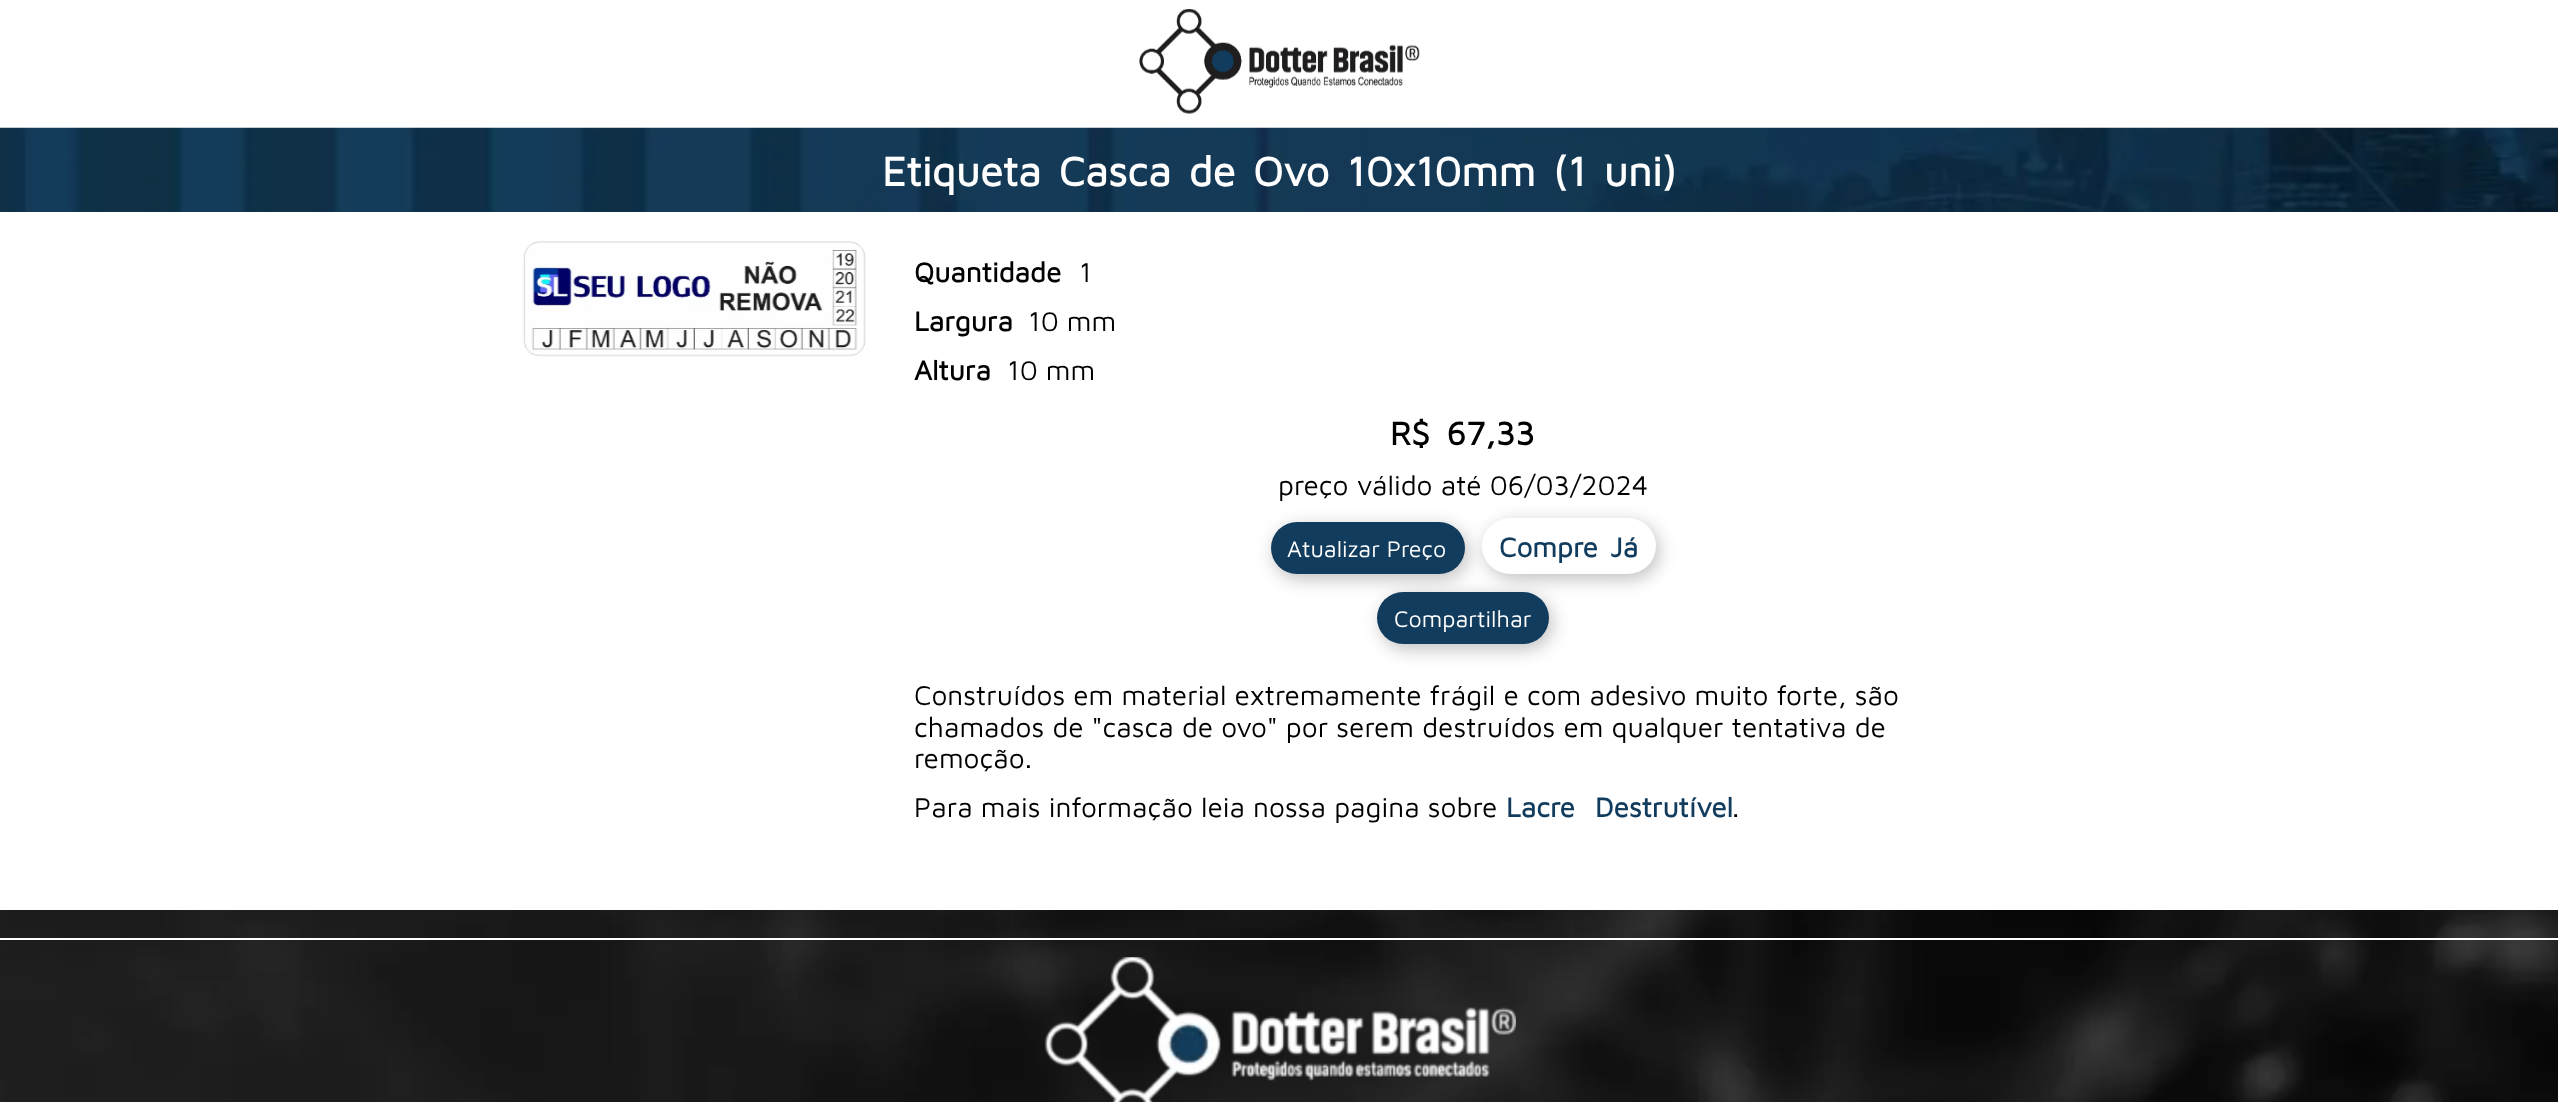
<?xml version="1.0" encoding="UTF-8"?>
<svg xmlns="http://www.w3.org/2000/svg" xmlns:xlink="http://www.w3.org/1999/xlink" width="2558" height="1102">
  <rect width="100%" height="100%" fill="#ffffff" />
  <image x="1139" y="9" width="281" height="105" xlink:href="image1.png" />
  <image x="0" y="127" width="2558" height="85" xlink:href="image2.png" />
  <image x="523" y="241" width="343" height="116" xlink:href="image3.png" />
  <rect x="1274" y="527" width="194" height="52" rx="26" fill="#777777" fill-opacity="0.47" filter="blur(9px)" />
  <rect x="1271" y="522" width="194" height="52" rx="26" fill="#123c5d" />
  <rect x="1486" y="523" width="173" height="56" rx="28" fill="#777777" fill-opacity="0.47" filter="blur(9px)" />
  <rect x="1482" y="518" width="174" height="56" rx="28" fill="#ffffff" />
  <rect x="1381" y="597" width="171" height="52" rx="26" fill="#777777" fill-opacity="0.47" filter="blur(9px)" />
  <rect x="1377" y="592" width="172" height="52" rx="26" fill="#123c5d" />
  <image x="0" y="910" width="2558" height="192" xlink:href="image4.png" />
  <rect y="938" width="2558" height="2" fill="#ffffff" />
  <image x="1044" y="957" width="472" height="145" xlink:href="image5.png" />
  <text x="882" y="186" word-spacing="5.25" style="font-family: Maven Pro; font-size: 42px; font-weight: bold; fill: #ffffff">Etiqueta Casca de Ovo 10x10mm (1 uni)</text>
  <text x="914" y="282" style="font-family: Maven Pro; font-size: 28px; font-weight: bold; fill: #000000">Quantidade</text>
  <text x="1079" y="282" style="font-family: Maven Pro; font-size: 28px; fill: #000000">1</text>
  <text x="914" y="331" style="font-family: Maven Pro; font-size: 28px; font-weight: bold; fill: #000000">Largura</text>
  <text x="1028" y="331" style="font-family: Maven Pro; font-size: 28px; fill: #000000">10 mm</text>
  <text x="914" y="380" style="font-family: Maven Pro; font-size: 28px; font-weight: bold; fill: #000000">Altura</text>
  <text x="1007" y="380" style="font-family: Maven Pro; font-size: 28px; fill: #000000">10 mm</text>
  <text x="1390" y="445" word-spacing="7" style="font-family: Maven Pro; font-size: 33.5px; font-weight: bold; fill: #000000">R$ 67,33</text>
  <text x="1278" y="495" style="font-family: Maven Pro; font-size: 28px; fill: #000000">preço válido até 06/03/2024</text>
  <text x="1287" y="557" style="font-family: Maven Pro; font-size: 23.25px; fill: #ffffff">Atualizar Preço</text>
  <text x="1499" y="557" word-spacing="4" style="font-family: Maven Pro; font-size: 28px; font-weight: bold; fill: #123c5d">Compre Já</text>
  <text x="1394" y="627" style="font-family: Maven Pro; font-size: 23.25px; fill: #ffffff">Compartilhar</text>
  <text x="914" y="705" style="font-family: Maven Pro; font-size: 28px; fill: #000000">Construídos em material extremamente frágil e com adesivo muito forte, são</text>
  <text x="914" y="737" style="font-family: Maven Pro; font-size: 28px; fill: #000000">chamados de "casca de ovo" por serem destruídos em qualquer tentativa de</text>
  <text x="914" y="768" style="font-family: Maven Pro; font-size: 28px; fill: #000000">remoção.</text>
  <text x="914" y="817" style="font-family: Maven Pro; font-size: 28px; fill: #000000">Para mais informação leia nossa pagina sobre</text>
  <text x="1506" y="817" word-spacing="12" style="font-family: Maven Pro; font-size: 28px; font-weight: bold; fill: #123c5d">Lacre Destrutível</text>
  <text x="1732" y="817" style="font-family: Maven Pro; font-size: 28px; fill: #000000">.</text>
</svg>
